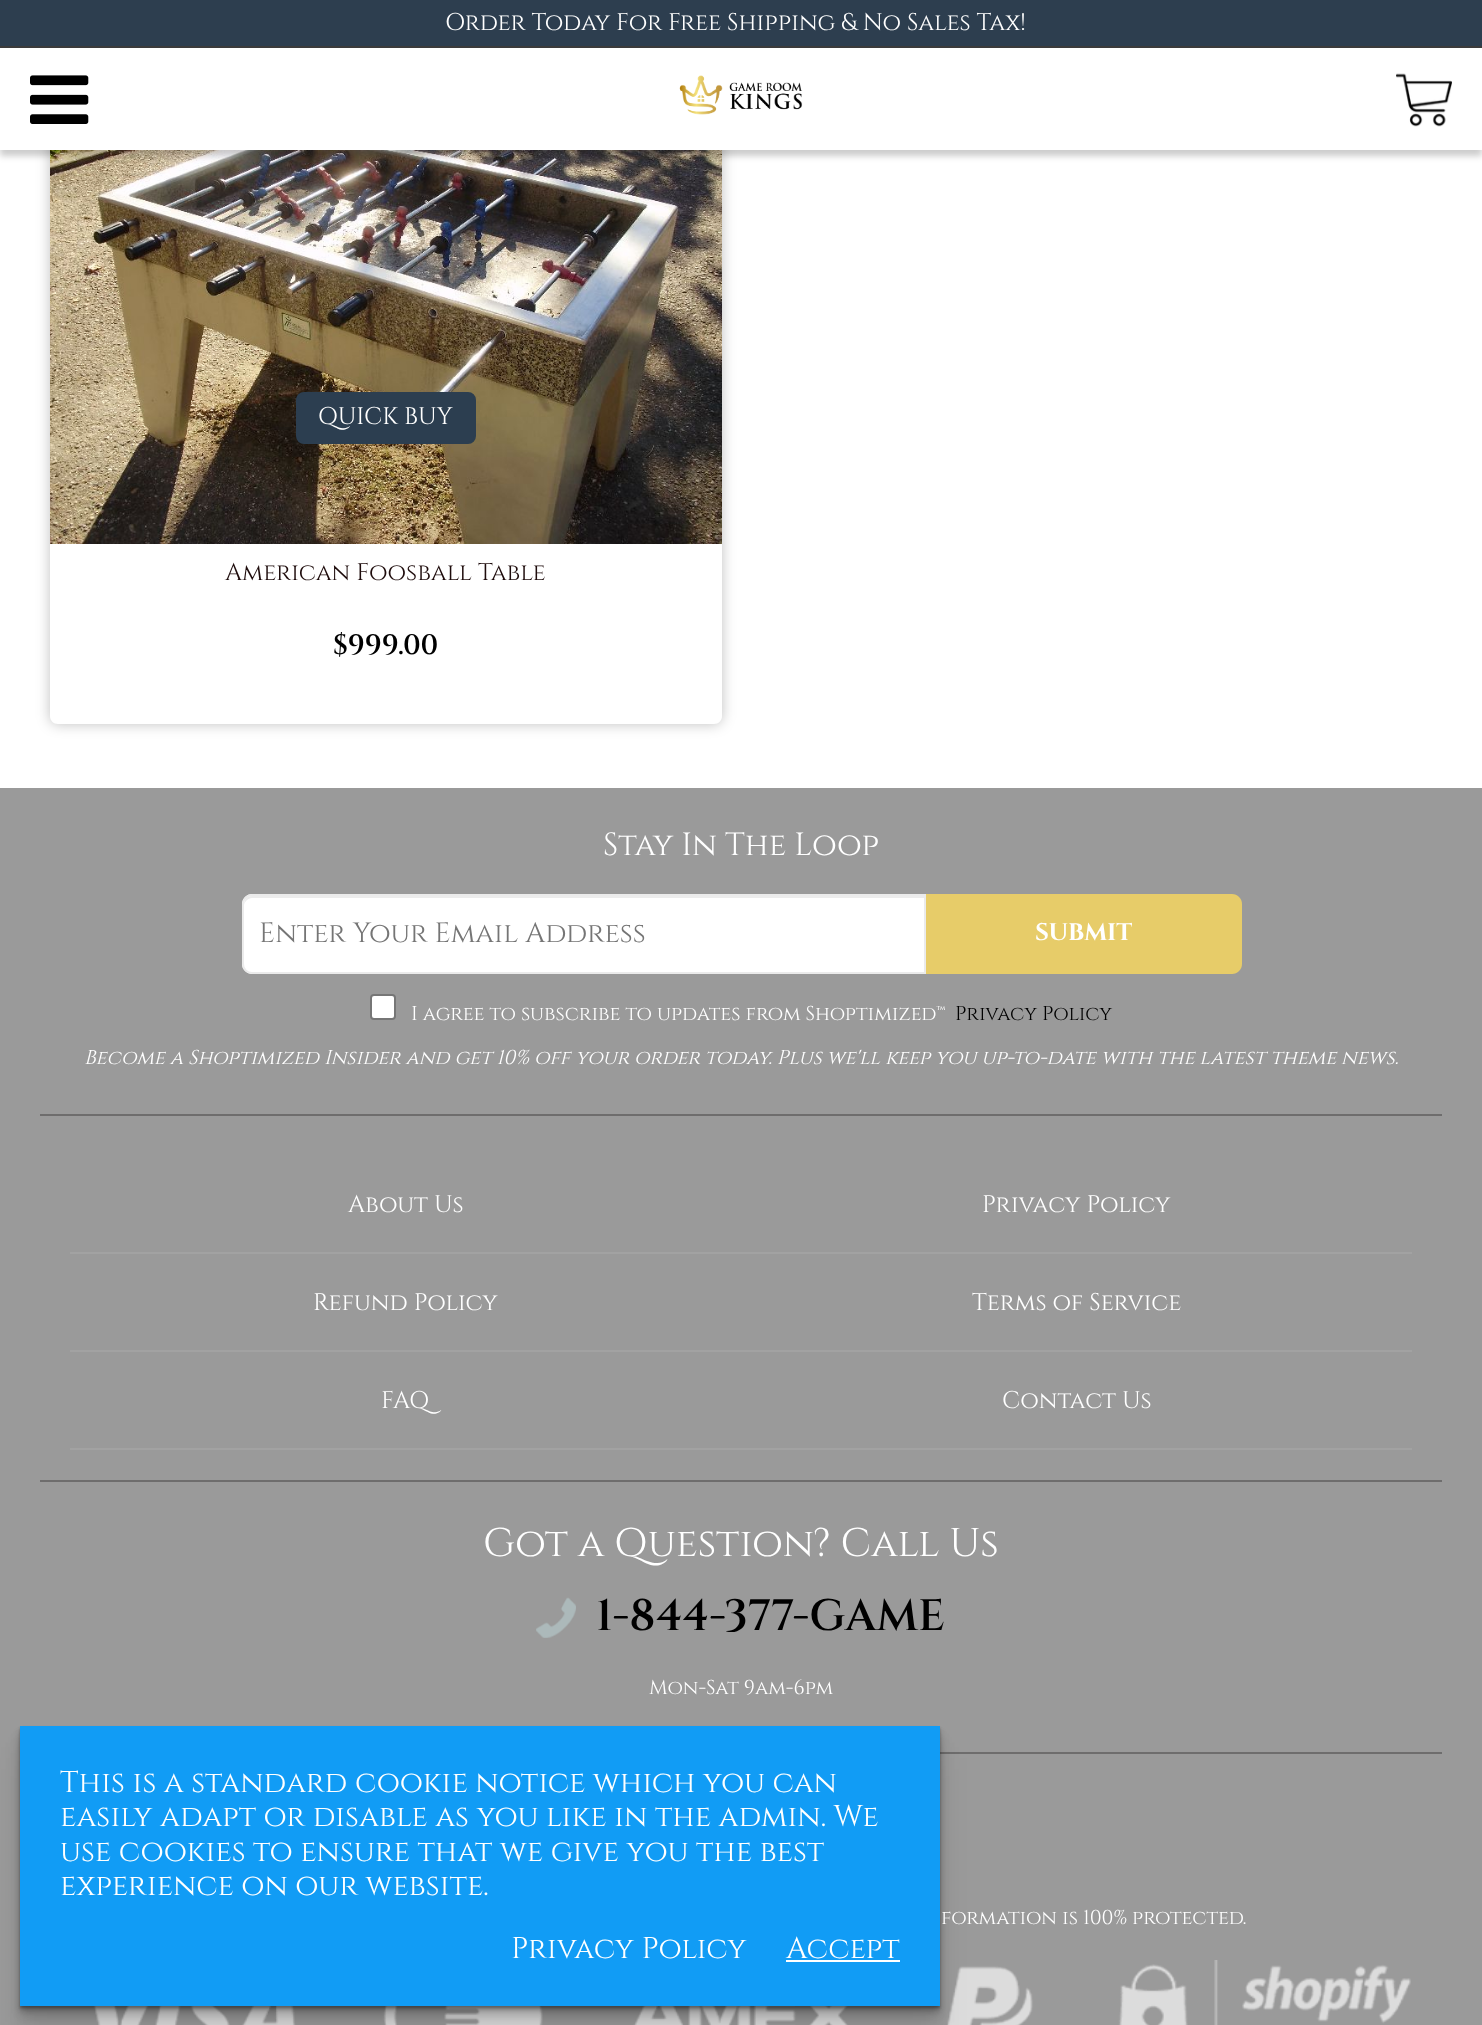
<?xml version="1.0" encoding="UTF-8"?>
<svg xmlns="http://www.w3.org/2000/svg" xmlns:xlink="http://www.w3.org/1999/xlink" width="1482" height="2025">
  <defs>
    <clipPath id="clip1"><path d="M 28 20 h 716 v 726 h -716 z m 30 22 h 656 c 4.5 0 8 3.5 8 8 v 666 c 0 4.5 -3.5 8 -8 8 h -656 c -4.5 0 -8 -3.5 -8 -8 v -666 c 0 -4.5 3.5 -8 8 -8 z" clip-rule="evenodd" /></clipPath>
  </defs>
  <rect width="100%" height="100%" fill="#ffffff" />
  <g clip-path="url(#clip1)">
    <rect x="50" y="42" width="672" height="682" rx="8" fill="#000000" fill-opacity="0.25" filter="blur(7px)" />
  </g>
  <image x="50" y="150" width="672" height="394" xlink:href="image4.png" />
  <rect y="6" width="1482" height="150" fill="#000000" fill-opacity="0.2" filter="blur(3px)" />
  <rect y="48" width="1482" height="102" fill="#ffffff" />
  <rect width="1482" height="46" fill="#2d3e4f" />
  <rect y="46" width="1482" height="2" fill="#3b3b3b" />
  <image x="30" y="75" width="59" height="49" xlink:href="image1.png" />
  <image x="679" y="75" width="124" height="40" xlink:href="image2.png" />
  <image x="1396" y="73" width="56" height="54" xlink:href="image3.png" />
  <rect x="297" y="393" width="178" height="50" rx="7" fill="#2c3e50" stroke="#2c3e50" stroke-width="2" />
  <rect y="788" width="1482" height="1237" fill="#9a9a9a" />
  <rect x="40" y="1114" width="1402" height="2" fill="#6e6d6d" />
  <path d="M 252 894 h 674 v 80 h -674 c -5.5 0 -10 -4.5 -10 -10 v -60 c 0 -5.5 4.5 -10 10 -10 z" fill="#ffffff" />
  <path d="M 252 898 h 672 v -2 h -672 c -6 0 -8 5 -8 10 c 0 -4 4 -8 8 -8 z" fill="#ececec" />
  <path d="M 252 895 h 673 v 78 h -673 c -5 0 -9 -4 -9 -9 v -60 c 0 -5 4 -9 9 -9 z" fill="none" stroke="#ebebeb" stroke-width="2" />
  <path d="M 926 894 h 306 c 5.5 0 10 4.5 10 10 v 60 c 0 5.5 -4.5 10 -10 10 h -306 z" fill="#e7cc69" />
  <rect x="371" y="995" width="24" height="24" rx="3" fill="#ffffff" stroke="#767676" stroke-width="2" />
  <rect x="40" y="1480" width="1402" height="2" fill="#6e6d6d" />
  <rect x="70" y="1252" width="1342" height="2" fill="#a2a2a2" />
  <rect x="70" y="1350" width="1342" height="2" fill="#a2a2a2" />
  <rect x="70" y="1448" width="1342" height="2" fill="#a2a2a2" />
  <rect x="940" y="1752" width="502" height="2" fill="#6e6d6d" />
  <image x="536" y="1597" width="40" height="41" xlink:href="image5.png" />
  <image x="93" y="1960" width="1318" height="65" xlink:href="image6.png" />
  <rect x="20" y="1758" width="920" height="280" fill="#000000" fill-opacity="0.05" filter="blur(16px)" />
  <rect x="20" y="1742" width="920" height="280" fill="#000000" fill-opacity="0.1" filter="blur(8px)" />
  <rect x="20" y="1734" width="920" height="280" fill="#000000" fill-opacity="0.15" filter="blur(4px)" />
  <rect x="20" y="1730" width="920" height="280" fill="#000000" fill-opacity="0.2" filter="blur(2px)" />
  <rect x="20" y="1728" width="920" height="280" fill="#000000" fill-opacity="0.25" filter="blur(1px)" />
  <rect x="20" y="1726" width="920" height="280" fill="#119cf5" />
  <rect x="786" y="1960" width="114" height="2" fill="#ffffff" />
  <text x="445" y="30" style="font-family: Cinzel; font-size: 24px; fill: #ffffff">Order Today For Free Shipping &amp; No Sales Tax!</text>
  <text x="318" y="424" style="font-family: Cinzel; font-size: 24px; fill: #ffffff">QUICK BUY</text>
  <text x="225" y="580" style="font-family: Cinzel; font-size: 24px; fill: #1e0c0c">American Foosball Table</text>
  <text x="333" y="654" style="font-family: Cinzel; font-size: 28px; font-weight: 600; fill: #000000">$999.00</text>
  <text x="603" y="855" style="font-family: Cinzel; font-size: 32px; fill: #ffffff">Stay In The Loop</text>
  <text x="259" y="942" style="font-family: Cinzel; font-size: 28px; fill: #757575">Enter Your Email Address</text>
  <text x="1035" y="940" style="font-family: Cinzel; font-size: 24px; font-weight: bold; fill: #ffffff">SUBMIT</text>
  <text x="411" y="1020" style="font-family: Cinzel; font-size: 20px; fill: #ffffff">I agree to subscribe to updates from Shoptimized™</text>
  <text x="955" y="1020" style="font-family: Cinzel; font-size: 20px; fill: #000000">Privacy Policy</text>
  <text x="84" y="1064" style="font-family: Cinzel; font-size: 20px; font-style: italic; fill: #ffffff">Become a Shoptimized Insider and get 10% off your order today. Plus we'll keep you up-to-date with the latest theme news.</text>
  <text x="348" y="1212" style="font-family: Cinzel; font-size: 24px; fill: #ffffff">About Us</text>
  <text x="982" y="1212" style="font-family: Cinzel; font-size: 24px; fill: #ffffff">Privacy Policy</text>
  <text x="313" y="1310" style="font-family: Cinzel; font-size: 24px; fill: #ffffff">Refund Policy</text>
  <text x="972" y="1310" style="font-family: Cinzel; font-size: 24px; fill: #ffffff">Terms of Service</text>
  <text x="381" y="1408" style="font-family: Cinzel; font-size: 24px; fill: #ffffff">FAQ</text>
  <text x="1002" y="1408" style="font-family: Cinzel; font-size: 24px; fill: #ffffff">Contact Us</text>
  <text x="483" y="1556" style="font-family: Cinzel; font-size: 40px; fill: #ffffff">Got a Question? Call Us</text>
  <text x="596" y="1630" style="font-family: Cinzel; font-size: 44px; font-weight: 600; fill: #000000">1-844-377-GAME</text>
  <text x="649" y="1694" style="font-family: Cinzel; font-size: 20px; fill: #ffffff">Mon-Sat 9am-6pm</text>
  <text x="941" y="1924" style="font-family: Cinzel; font-size: 20px; fill: #ffffff">formation is 100% protected.</text>
  <text x="60" y="1792" style="font-family: Cinzel; font-size: 30px; fill: #ffffff">This is a standard cookie notice which you can</text>
  <text x="60" y="1826" style="font-family: Cinzel; font-size: 30px; fill: #ffffff">easily adapt or disable as you like in the admin. We</text>
  <text x="60" y="1861" style="font-family: Cinzel; font-size: 30px; fill: #ffffff">use cookies to ensure that we give you the best</text>
  <text x="60" y="1895" style="font-family: Cinzel; font-size: 30px; fill: #ffffff">experience on our website.</text>
  <text x="511" y="1958" style="font-family: Cinzel; font-size: 30px; fill: #ffffff">Privacy Policy</text>
  <text x="786" y="1958" style="font-family: Cinzel; font-size: 30px; fill: #ffffff">Accept</text>
</svg>
